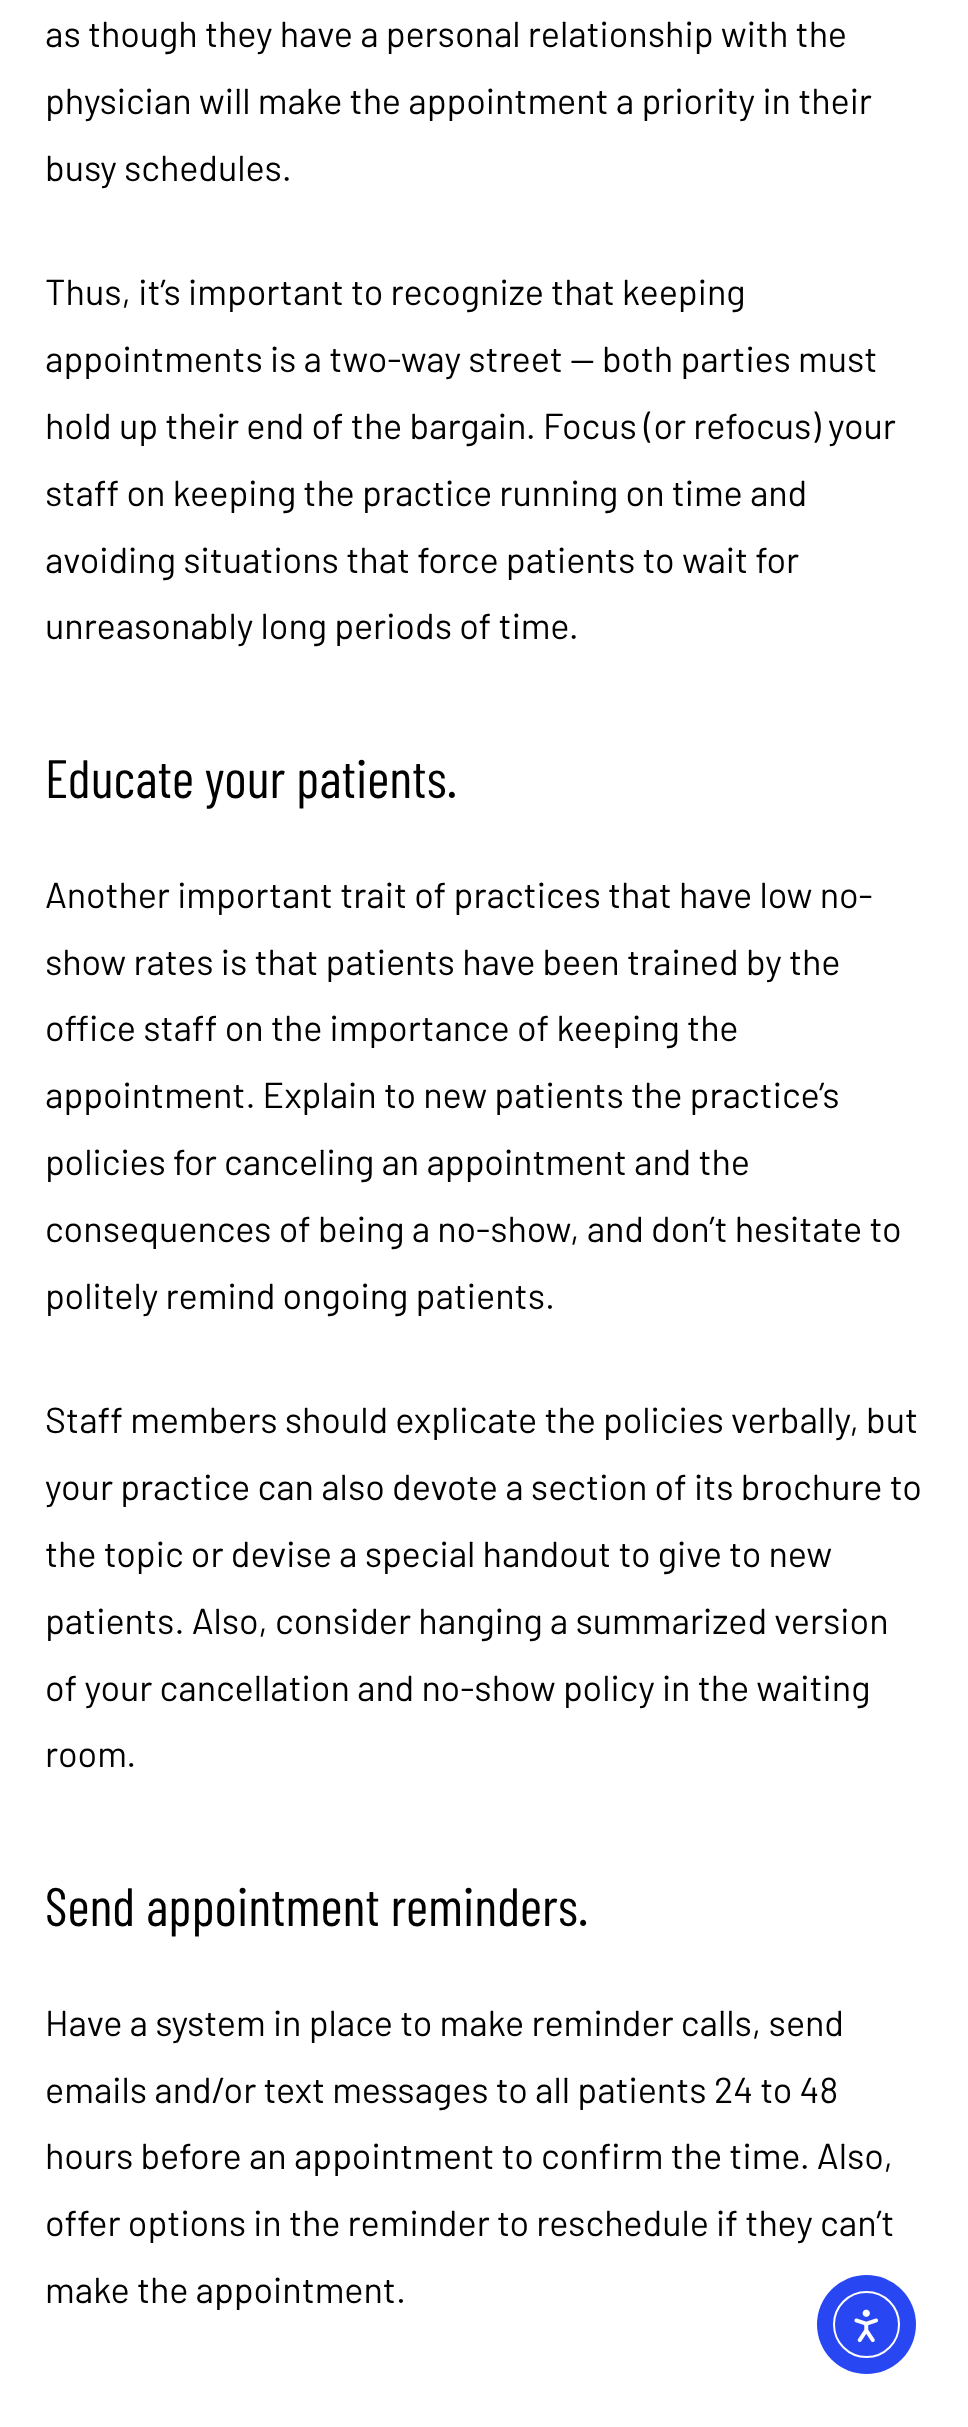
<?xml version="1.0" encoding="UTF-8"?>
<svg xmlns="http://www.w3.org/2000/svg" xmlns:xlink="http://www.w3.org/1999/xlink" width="968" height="2427">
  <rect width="100%" height="100%" fill="#ffffff" />
  <circle cx="866.5" cy="2324.5" r="49.5" fill="#2847f3" />
  <circle cx="866.5" cy="2324.5" r="32.5" fill="none" stroke="#ffffff" stroke-width="2" />
  <image x="854" y="2309" width="24" height="34" xlink:href="image1.png" />
  <text x="45" y="47" style="font-family: Barlow; font-size: 36px; fill: #000000">as though they have a personal relationship with the</text>
  <text x="45" y="114" style="font-family: Barlow; font-size: 36px; fill: #000000">physician will make the appointment a priority in their</text>
  <text x="45" y="181" style="font-family: Barlow; font-size: 36px; fill: #000000">busy schedules.</text>
  <text x="45" y="305" style="font-family: Barlow; font-size: 36px; fill: #000000">Thus, it’s important to recognize that keeping</text>
  <text x="45" y="372" style="font-family: Barlow; font-size: 36px; fill: #000000">appointments is a two-way street — both parties must</text>
  <text x="45" y="439" style="font-family: Barlow; font-size: 36px; fill: #000000">hold up their end of the bargain. Focus (or refocus) your</text>
  <text x="45" y="506" style="font-family: Barlow; font-size: 36px; fill: #000000">staff on keeping the practice running on time and</text>
  <text x="45" y="573" style="font-family: Barlow; font-size: 36px; fill: #000000">avoiding situations that force patients to wait for</text>
  <text x="45" y="639" style="font-family: Barlow; font-size: 36px; fill: #000000">unreasonably long periods of time.</text>
  <text x="45" y="798" style="font-family: Barlow Condensed; font-size: 54px; fill: #000000">Educate your patients.</text>
  <text x="45" y="908" style="font-family: Barlow; font-size: 36px; fill: #000000">Another important trait of practices that have low no-</text>
  <text x="45" y="975" style="font-family: Barlow; font-size: 36px; fill: #000000">show rates is that patients have been trained by the</text>
  <text x="45" y="1041" style="font-family: Barlow; font-size: 36px; fill: #000000">office staff on the importance of keeping the</text>
  <text x="45" y="1108" style="font-family: Barlow; font-size: 36px; fill: #000000">appointment. Explain to new patients the practice’s</text>
  <text x="45" y="1175" style="font-family: Barlow; font-size: 36px; fill: #000000">policies for canceling an appointment and the</text>
  <text x="45" y="1242" style="font-family: Barlow; font-size: 36px; fill: #000000">consequences of being a no-show, and don’t hesitate to</text>
  <text x="45" y="1309" style="font-family: Barlow; font-size: 36px; fill: #000000">politely remind ongoing patients.</text>
  <text x="45" y="1433" style="font-family: Barlow; font-size: 36px; fill: #000000">Staff members should explicate the policies verbally, but</text>
  <text x="45" y="1500" style="font-family: Barlow; font-size: 36px; fill: #000000">your practice can also devote a section of its brochure to</text>
  <text x="45" y="1567" style="font-family: Barlow; font-size: 36px; fill: #000000">the topic or devise a special handout to give to new</text>
  <text x="45" y="1634" style="font-family: Barlow; font-size: 36px; fill: #000000">patients. Also, consider hanging a summarized version</text>
  <text x="45" y="1701" style="font-family: Barlow; font-size: 36px; fill: #000000">of your cancellation and no-show policy in the waiting</text>
  <text x="45" y="1767" style="font-family: Barlow; font-size: 36px; fill: #000000">room.</text>
  <text x="45" y="1926" style="font-family: Barlow Condensed; font-size: 54px; fill: #000000">Send appointment reminders.</text>
  <text x="45" y="2036" style="font-family: Barlow; font-size: 36px; fill: #000000">Have a system in place to make reminder calls, send</text>
  <text x="45" y="2103" style="font-family: Barlow; font-size: 36px; fill: #000000">emails and/or text messages to all patients 24 to 48</text>
  <text x="45" y="2169" style="font-family: Barlow; font-size: 36px; fill: #000000">hours before an appointment to confirm the time. Also,</text>
  <text x="45" y="2236" style="font-family: Barlow; font-size: 36px; fill: #000000">offer options in the reminder to reschedule if they can’t</text>
  <text x="45" y="2303" style="font-family: Barlow; font-size: 36px; fill: #000000">make the appointment.</text>
</svg>
